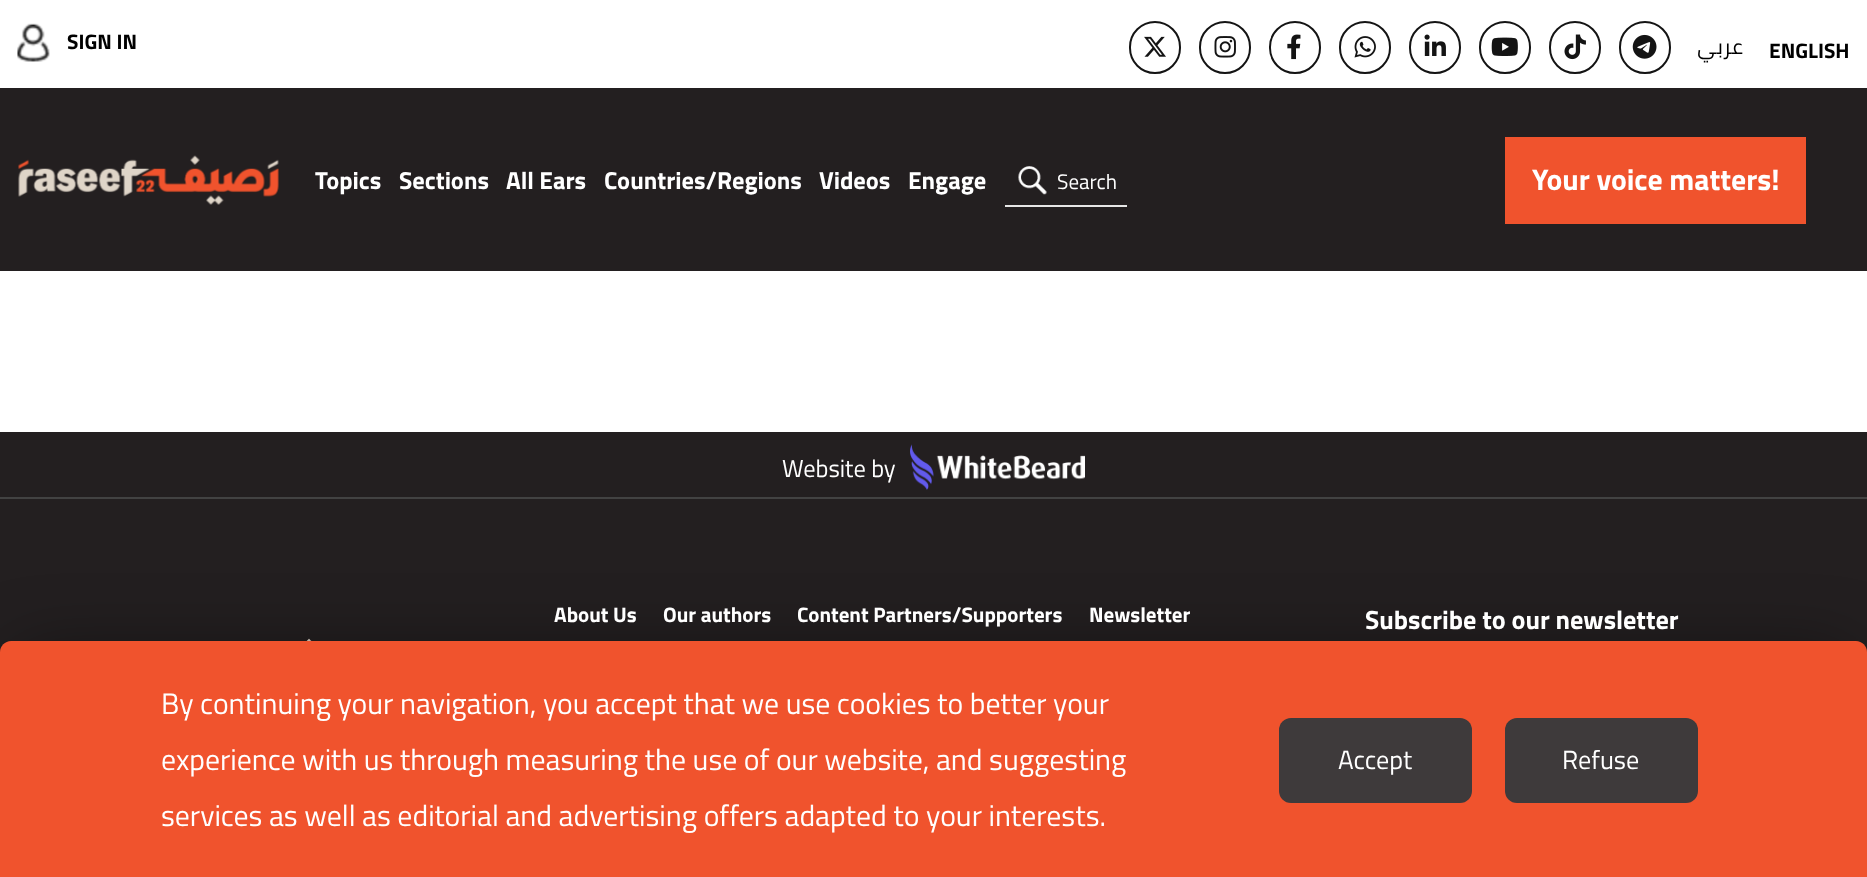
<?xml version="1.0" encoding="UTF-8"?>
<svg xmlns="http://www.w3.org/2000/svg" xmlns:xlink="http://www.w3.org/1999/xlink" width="1867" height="877">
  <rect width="100%" height="100%" fill="#ffffff" />
  <image x="17" y="23" width="33" height="39" xlink:href="image1.png" />
  <rect x="1130" y="22" width="50" height="51" rx="25" fill="none" stroke="#141414" stroke-width="2" />
  <image x="1144" y="36" width="22" height="21" xlink:href="image2.png" />
  <rect x="1200" y="22" width="50" height="51" rx="25" fill="none" stroke="#141414" stroke-width="2" />
  <image x="1214" y="36" width="22" height="22" xlink:href="image3.png" />
  <rect x="1270" y="22" width="50" height="51" rx="25" fill="none" stroke="#141414" stroke-width="2" />
  <image x="1287" y="34" width="14" height="26" xlink:href="image4.png" />
  <rect x="1340" y="22" width="50" height="51" rx="25" fill="none" stroke="#141414" stroke-width="2" />
  <image x="1354" y="36" width="22" height="22" xlink:href="image5.png" />
  <rect x="1410" y="22" width="50" height="51" rx="25" fill="none" stroke="#141414" stroke-width="2" />
  <image x="1424" y="34" width="22" height="22" xlink:href="image6.png" />
  <rect x="1480" y="22" width="50" height="51" rx="25" fill="none" stroke="#141414" stroke-width="2" />
  <image x="1491" y="37" width="27" height="19" xlink:href="image7.png" />
  <rect x="1550" y="22" width="50" height="51" rx="25" fill="none" stroke="#141414" stroke-width="2" />
  <image x="1564" y="34" width="22" height="26" xlink:href="image8.png" />
  <rect x="1620" y="22" width="50" height="51" rx="25" fill="none" stroke="#141414" stroke-width="2" />
  <image x="1632" y="34" width="25" height="25" xlink:href="image9.png" />
  <rect y="88" width="1867" height="183" fill="#231f20" />
  <image x="18" y="155" width="261" height="50" xlink:href="image10.png" />
  <image x="1018" y="166" width="29" height="29" xlink:href="image11.png" />
  <rect x="1005" y="205" width="122" height="2" fill="#e6e6e6" />
  <rect x="1505" y="137" width="301" height="87" fill="#f0532d" />
  <rect y="432" width="1867" height="65" fill="#231f20" />
  <rect y="497" width="1867" height="2" fill="#424242" />
  <image x="910" y="444" width="175" height="46" xlink:href="image12.png" />
  <rect y="499" width="1867" height="153" fill="#231f20" />
  <image x="306" y="638" width="6" height="3" xlink:href="image13.png" />
  <rect x="18" y="658" width="1832" height="203" fill="#000000" fill-opacity="0.5" filter="blur(37.5px)" />
  <path d="M 11 641 h 1845 c 6 0 11 5 11 11 v 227 h -1867 v -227 c 0 -6 5 -11 11 -11 z" fill="#f0532d" />
  <rect x="1279" y="718" width="193" height="85" rx="12" fill="#3e3a3b" />
  <rect x="1505" y="718" width="193" height="85" rx="12" fill="#3e3a3b" />
  <text x="67" y="49" style="font-family: Cairo; font-size: 21px; font-weight: bold; fill: #000000">SIGN IN</text>
  <text x="1743" y="54" style="font-family: Cairo; font-size: 21px; direction: rtl; fill: #000000">عربي</text>
  <text x="1769" y="58" style="font-family: Cairo; font-size: 21px; font-weight: bold; fill: #000000">ENGLISH</text>
  <text x="315" y="189" style="font-family: Cairo; font-size: 24.5px; font-weight: bold; fill: #ffffff">Topics</text>
  <text x="399" y="189" style="font-family: Cairo; font-size: 24.5px; font-weight: bold; fill: #ffffff">Sections</text>
  <text x="506" y="189" style="font-family: Cairo; font-size: 24.5px; font-weight: bold; fill: #ffffff">All Ears</text>
  <text x="604" y="189" style="font-family: Cairo; font-size: 24.5px; font-weight: bold; fill: #ffffff">Countries/Regions</text>
  <text x="819" y="189" style="font-family: Cairo; font-size: 24.5px; font-weight: bold; fill: #ffffff">Videos</text>
  <text x="908" y="189" style="font-family: Cairo; font-size: 24.5px; font-weight: bold; fill: #ffffff">Engage</text>
  <text x="1057" y="189" style="font-family: Cairo; font-size: 21px; fill: #ffffff">Search</text>
  <text x="1532" y="190" style="font-family: Cairo; font-size: 29.75px; font-weight: bold; fill: #ffffff">Your voice matters!</text>
  <text x="782" y="477" style="font-family: Cairo; font-size: 24.5px; fill: #ffffff">Website by</text>
  <text x="554" y="622" style="font-family: Cairo; font-size: 21px; font-weight: bold; fill: #ffffff">About Us</text>
  <text x="663" y="622" style="font-family: Cairo; font-size: 21px; font-weight: bold; fill: #ffffff">Our authors</text>
  <text x="797" y="622" style="font-family: Cairo; font-size: 21px; font-weight: bold; fill: #ffffff">Content Partners/Supporters</text>
  <text x="1089" y="622" style="font-family: Cairo; font-size: 21px; font-weight: bold; fill: #ffffff">Newsletter</text>
  <text x="1365" y="629" style="font-family: Cairo; font-size: 26.25px; font-weight: bold; fill: #ffffff">Subscribe to our newsletter</text>
  <text x="161" y="714" style="font-family: Cairo; font-size: 29.75px; fill: #ffffff">By continuing your navigation, you accept that we use cookies to better your</text>
  <text x="161" y="770" style="font-family: Cairo; font-size: 29.75px; fill: #ffffff">experience with us through measuring the use of our website, and suggesting</text>
  <text x="161" y="826" style="font-family: Cairo; font-size: 29.75px; fill: #ffffff">services as well as editorial and advertising offers adapted to your interests.</text>
  <text x="1338" y="769" style="font-family: Cairo; font-size: 26.25px; fill: #ffffff">Accept</text>
  <text x="1562" y="769" style="font-family: Cairo; font-size: 26.25px; fill: #ffffff">Refuse</text>
</svg>
